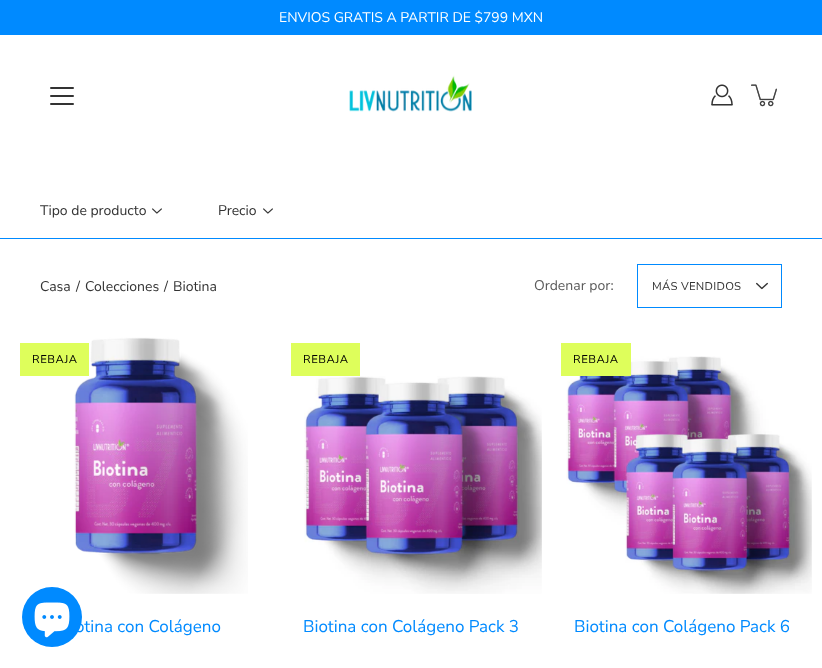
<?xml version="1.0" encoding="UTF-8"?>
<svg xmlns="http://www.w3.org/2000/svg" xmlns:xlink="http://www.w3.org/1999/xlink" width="822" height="668">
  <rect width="100%" height="100%" fill="#ffffff" />
  <rect width="822" height="35" fill="#008aff" />
  <image x="349" y="75" width="123" height="37" xlink:href="image1.png" />
  <rect x="50" y="95" width="24" height="2" rx="1" fill="#333333" />
  <rect x="50" y="87" width="24" height="2" rx="1" fill="#333333" />
  <rect x="50" y="103" width="24" height="2" rx="1" fill="#333333" />
  <image x="711" y="84" width="22" height="22" xlink:href="image2.png" />
  <image x="751" y="84" width="26" height="23" xlink:href="image3.png" />
  <rect y="238" width="822" height="1" fill="#008aff" />
  <image x="152" y="208" width="10" height="6" xlink:href="image4.png" />
  <image x="263" y="208" width="10" height="6" xlink:href="image4.png" />
  <rect x="637.5" y="264.5" width="144" height="43" fill="none" stroke="#008aff" />
  <image x="756" y="282" width="12" height="8" xlink:href="image5.png" />
  <image x="74" y="337" width="174" height="257" xlink:href="image6.png" />
  <rect x="20" y="343" width="69" height="33" fill="#defe5b" />
  <image x="304" y="376" width="238" height="218" xlink:href="image7.png" />
  <rect x="291" y="343" width="69" height="33" fill="#defe5b" />
  <image x="566" y="356" width="246" height="238" xlink:href="image8.png" />
  <rect x="561" y="343" width="70" height="33" fill="#defe5b" />
  <circle cx="52" cy="617" r="30" fill="#008aff" />
  <image x="34" y="602" width="36" height="36" xlink:href="image9.png" />
  <text x="279" y="22" style="font-family: Nunito Sans; font-size: 14px; fill: #ffffff">ENVIOS GRATIS A PARTIR DE $799 MXN</text>
  <text x="40" y="215" style="font-family: Nunito Sans; font-size: 14px; fill: #333333">Tipo de producto</text>
  <text x="218" y="215" style="font-family: Nunito Sans; font-size: 14px; fill: #333333">Precio</text>
  <text x="40" y="291" style="font-family: Nunito Sans; font-size: 14px; fill: #333333">Casa</text>
  <text x="76" y="291" style="font-family: Nunito Sans; font-size: 14px; fill: #333333">/</text>
  <text x="85" y="291" style="font-family: Nunito Sans; font-size: 14px; fill: #333333">Colecciones</text>
  <text x="164" y="291" style="font-family: Nunito Sans; font-size: 14px; fill: #333333">/</text>
  <text x="173" y="291" style="font-family: Nunito Sans; font-size: 14px; fill: #333333">Biotina</text>
  <text x="534" y="290" style="font-family: Nunito Sans; font-size: 14px; fill: #5c5c5c">Ordenar por:</text>
  <text x="652" y="290" style="font-family: 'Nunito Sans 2'; font-size: 11.25px; letter-spacing: 0.25px; fill: #333333">MÁS VENDIDOS</text>
  <text x="32" y="363" style="font-family: 'Nunito Sans 2'; font-size: 11.25px; letter-spacing: 0.5px; fill: #000000">REBAJA</text>
  <text x="75" y="632" style="font-family: Nunito Sans; font-size: 17px; fill: #008aff">otina con Colágeno</text>
  <text x="303" y="363" style="font-family: 'Nunito Sans 2'; font-size: 11.25px; letter-spacing: 0.5px; fill: #000000">REBAJA</text>
  <text x="303" y="632" style="font-family: Nunito Sans; font-size: 17px; fill: #008aff">Biotina con Colágeno Pack 3</text>
  <text x="573" y="363" style="font-family: 'Nunito Sans 2'; font-size: 11.25px; letter-spacing: 0.5px; fill: #000000">REBAJA</text>
  <text x="574" y="632" style="font-family: Nunito Sans; font-size: 17px; fill: #008aff">Biotina con Colágeno Pack 6</text>
</svg>
